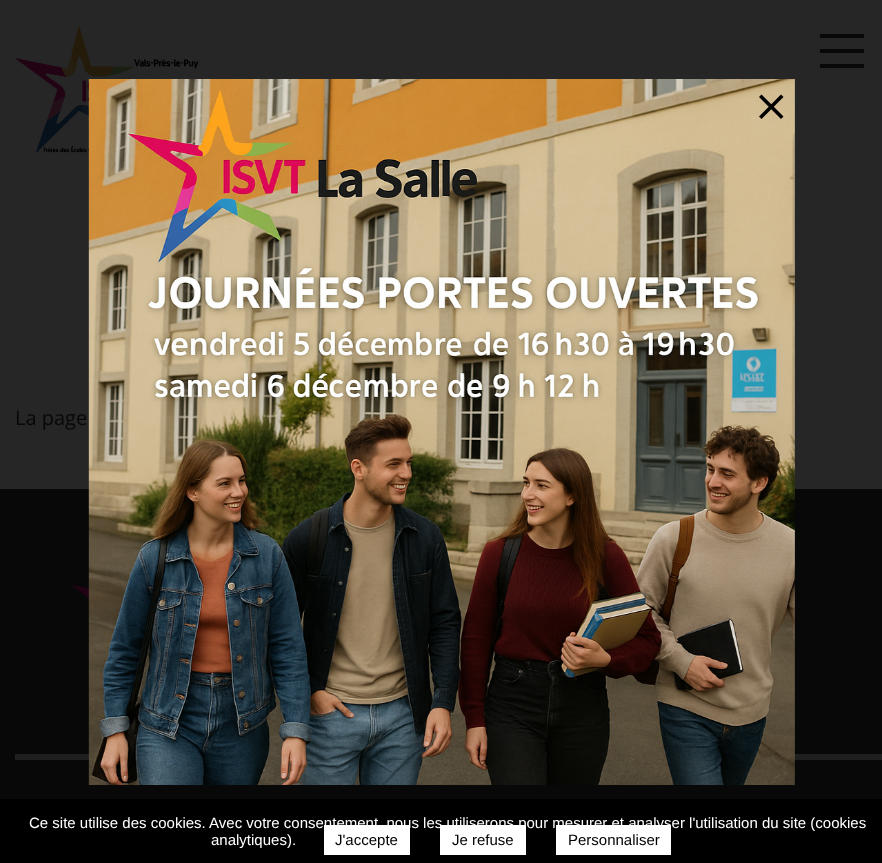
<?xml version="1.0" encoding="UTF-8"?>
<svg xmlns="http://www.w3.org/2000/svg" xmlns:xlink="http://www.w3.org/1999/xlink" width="882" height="863">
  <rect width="100%" height="100%" fill="#262626" />
  <image x="15" y="25" width="184" height="128" xlink:href="image1.png" />
  <rect x="820" y="49" width="44" height="4" fill="#080808" />
  <rect x="820" y="34" width="44" height="4" fill="#080808" />
  <rect x="820" y="64" width="44" height="4" fill="#080808" />
  <rect y="489" width="882" height="310" fill="#080808" />
  <image x="71" y="584" width="18" height="15" xlink:href="image3.png" />
  <rect x="15" y="754" width="867" height="6" fill="#1f1f1f" />
  <image x="88" y="79" width="707" height="706" xlink:href="image2.png" />
  <path d="M 781 94.5 l 2.5 2.5 l -22 22 l -2.5 -2.5 z" fill="#000000" />
  <path d="M 759 97 l 2.5 -2.5 l 22 22 l -2.5 2.5 z" fill="#000000" />
  <rect y="799" width="882" height="64" fill="#000000" />
  <rect x="324" y="825" width="86" height="30" fill="#ffffff" />
  <rect x="440" y="825" width="86" height="30" fill="#ffffff" />
  <rect x="556" y="825" width="115" height="30" fill="#ffffff" />
  <text x="15" y="425" style="font-family: Open Sans; font-size: 20px; fill: #080808">La page</text>
  <text x="29" y="828" style="font-family: Liberation Sans; font-size: 15px; fill: #ffffff">Ce site utilise des cookies. Avec votre consentement, nous les utiliserons pour mesurer et analyser l'utilisation du site (cookies</text>
  <text x="211" y="845" style="font-family: Liberation Sans; font-size: 15px; fill: #ffffff">analytiques).</text>
  <text x="335" y="845" style="font-family: Liberation Sans; font-size: 15px; fill: #000000">J'accepte</text>
  <text x="452" y="845" style="font-family: Liberation Sans; font-size: 15px; fill: #000000">Je refuse</text>
  <text x="568" y="845" style="font-family: Liberation Sans; font-size: 15px; fill: #000000">Personnaliser</text>
</svg>
